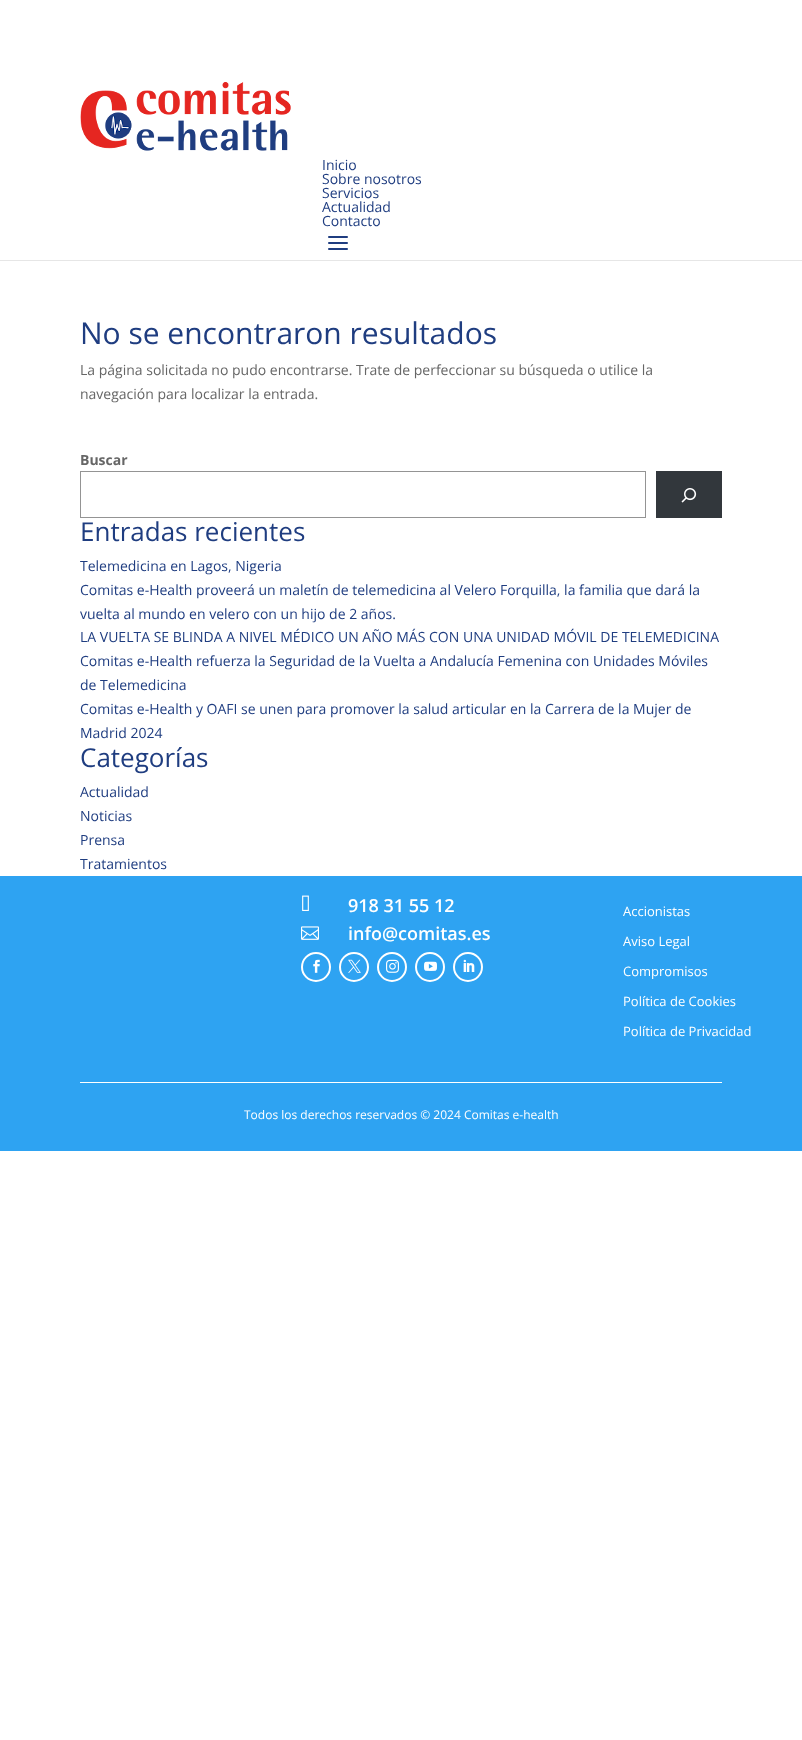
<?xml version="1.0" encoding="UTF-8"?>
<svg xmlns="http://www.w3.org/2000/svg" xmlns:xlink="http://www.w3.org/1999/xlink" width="802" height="1740">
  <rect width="100%" height="100%" fill="#ffffff" />
  <rect y="260" width="802" height="1" fill="#e6e6e6" />
  <image x="80" y="82" width="211" height="69" xlink:href="image1.png" />
  <image x="328" y="236" width="20" height="14" xlink:href="image2.png" />
  <rect x="80.5" y="471.5" width="565" height="46" fill="none" stroke="#949494" />
  <rect x="656" y="471" width="66" height="47" fill="#32373c" />
  <image x="681" y="488" width="16" height="15" xlink:href="image3.png" />
  <rect y="876" width="802" height="275" fill="#2ea3f2" />
  <image x="302" y="895" width="7" height="16" xlink:href="image4.png" />
  <image x="301" y="926" width="18" height="14" xlink:href="image5.png" />
  <circle cx="316" cy="967" r="14" fill="none" stroke="#ffffff" stroke-width="2" />
  <image x="313" y="959" width="7" height="14" xlink:href="image6.png" />
  <circle cx="354" cy="967" r="14" fill="none" stroke="#ffffff" stroke-width="2" />
  <image x="348" y="959" width="13" height="14" xlink:href="image7.png" />
  <circle cx="392" cy="967" r="14" fill="none" stroke="#ffffff" stroke-width="2" />
  <image x="386" y="959" width="13" height="14" xlink:href="image8.png" />
  <circle cx="430" cy="967" r="14" fill="none" stroke="#ffffff" stroke-width="2" />
  <image x="424" y="961" width="13" height="10" xlink:href="image9.png" />
  <circle cx="468" cy="967" r="14" fill="none" stroke="#ffffff" stroke-width="2" />
  <image x="463" y="959" width="12" height="13" xlink:href="image10.png" />
  <rect x="80" y="1082" width="642" height="1" fill="#ffffff" />
  <text x="322" y="170" style="font-family: Open Sans; font-size: 14px; fill: #1f3d80">Inicio</text>
  <text x="322" y="184" style="font-family: Open Sans; font-size: 14px; fill: #1f3d80">Sobre nosotros</text>
  <text x="322" y="198" style="font-family: Open Sans; font-size: 14px; fill: #1f3d80">Servicios</text>
  <text x="322" y="212" style="font-family: Open Sans; font-size: 14px; fill: #1f3d80">Actualidad</text>
  <text x="322" y="226" style="font-family: Open Sans; font-size: 14px; fill: #1f3d80">Contacto</text>
  <text x="80" y="344" style="font-family: Open Sans; font-size: 30px; fill: #1f3d80">No se encontraron resultados</text>
  <text x="80" y="375" style="font-family: Open Sans; font-size: 14px; fill: #666666">La página solicitada no pudo encontrarse. Trate de perfeccionar su búsqueda o utilice la</text>
  <text x="80" y="399" style="font-family: Open Sans; font-size: 14px; fill: #666666">navegación para localizar la entrada.</text>
  <text x="80" y="465" style="font-family: Open Sans; font-size: 14px; font-weight: bold; fill: #666666">Buscar</text>
  <text x="80" y="541" style="font-family: Open Sans; font-size: 26px; fill: #1f3d80">Entradas recientes</text>
  <text x="80" y="571" style="font-family: Open Sans; font-size: 14px; fill: #1f3d80">Telemedicina en Lagos, Nigeria</text>
  <text x="80" y="595" style="font-family: Open Sans; font-size: 14px; fill: #1f3d80">Comitas e-Health proveerá un maletín de telemedicina al Velero Forquilla, la familia que dará la</text>
  <text x="80" y="619" style="font-family: Open Sans; font-size: 14px; fill: #1f3d80">vuelta al mundo en velero con un hijo de 2 años.</text>
  <text x="80" y="642" style="font-family: Open Sans; font-size: 14px; fill: #1f3d80">LA VUELTA SE BLINDA A NIVEL MÉDICO UN AÑO MÁS CON UNA UNIDAD MÓVIL DE TELEMEDICINA</text>
  <text x="80" y="666" style="font-family: Open Sans; font-size: 14px; fill: #1f3d80">Comitas e-Health refuerza la Seguridad de la Vuelta a Andalucía Femenina con Unidades Móviles</text>
  <text x="80" y="690" style="font-family: Open Sans; font-size: 14px; fill: #1f3d80">de Telemedicina</text>
  <text x="80" y="714" style="font-family: Open Sans; font-size: 14px; fill: #1f3d80">Comitas e-Health y OAFI se unen para promover la salud articular en la Carrera de la Mujer de</text>
  <text x="80" y="738" style="font-family: Open Sans; font-size: 14px; fill: #1f3d80">Madrid 2024</text>
  <text x="80" y="767" style="font-family: Open Sans; font-size: 26px; fill: #1f3d80">Categorías</text>
  <text x="80" y="797" style="font-family: Open Sans; font-size: 14px; fill: #1f3d80">Actualidad</text>
  <text x="80" y="821" style="font-family: Open Sans; font-size: 14px; fill: #1f3d80">Noticias</text>
  <text x="80" y="845" style="font-family: Open Sans; font-size: 14px; fill: #1f3d80">Prensa</text>
  <text x="80" y="869" style="font-family: Open Sans; font-size: 14px; fill: #1f3d80">Tratamientos</text>
  <text x="348" y="912" style="font-family: Open Sans; font-size: 18px; font-weight: 600; fill: #ffffff">918 31 55 12</text>
  <text x="348" y="940" style="font-family: Open Sans; font-size: 18px; font-weight: 600; fill: #ffffff">info@comitas.es</text>
  <text x="623" y="916" style="font-family: Open Sans; font-size: 13px; fill: #ffffff">Accionistas</text>
  <text x="623" y="946" style="font-family: Open Sans; font-size: 13px; fill: #ffffff">Aviso Legal</text>
  <text x="623" y="976" style="font-family: Open Sans; font-size: 13px; fill: #ffffff">Compromisos</text>
  <text x="623" y="1006" style="font-family: Open Sans; font-size: 13px; fill: #ffffff">Política de Cookies</text>
  <text x="623" y="1036" style="font-family: Open Sans; font-size: 13px; fill: #ffffff">Política de Privacidad</text>
  <text x="244" y="1119" style="font-family: Open Sans; font-size: 12px; fill: #ffffff">Todos los derechos reservados © 2024 Comitas e-health</text>
</svg>
